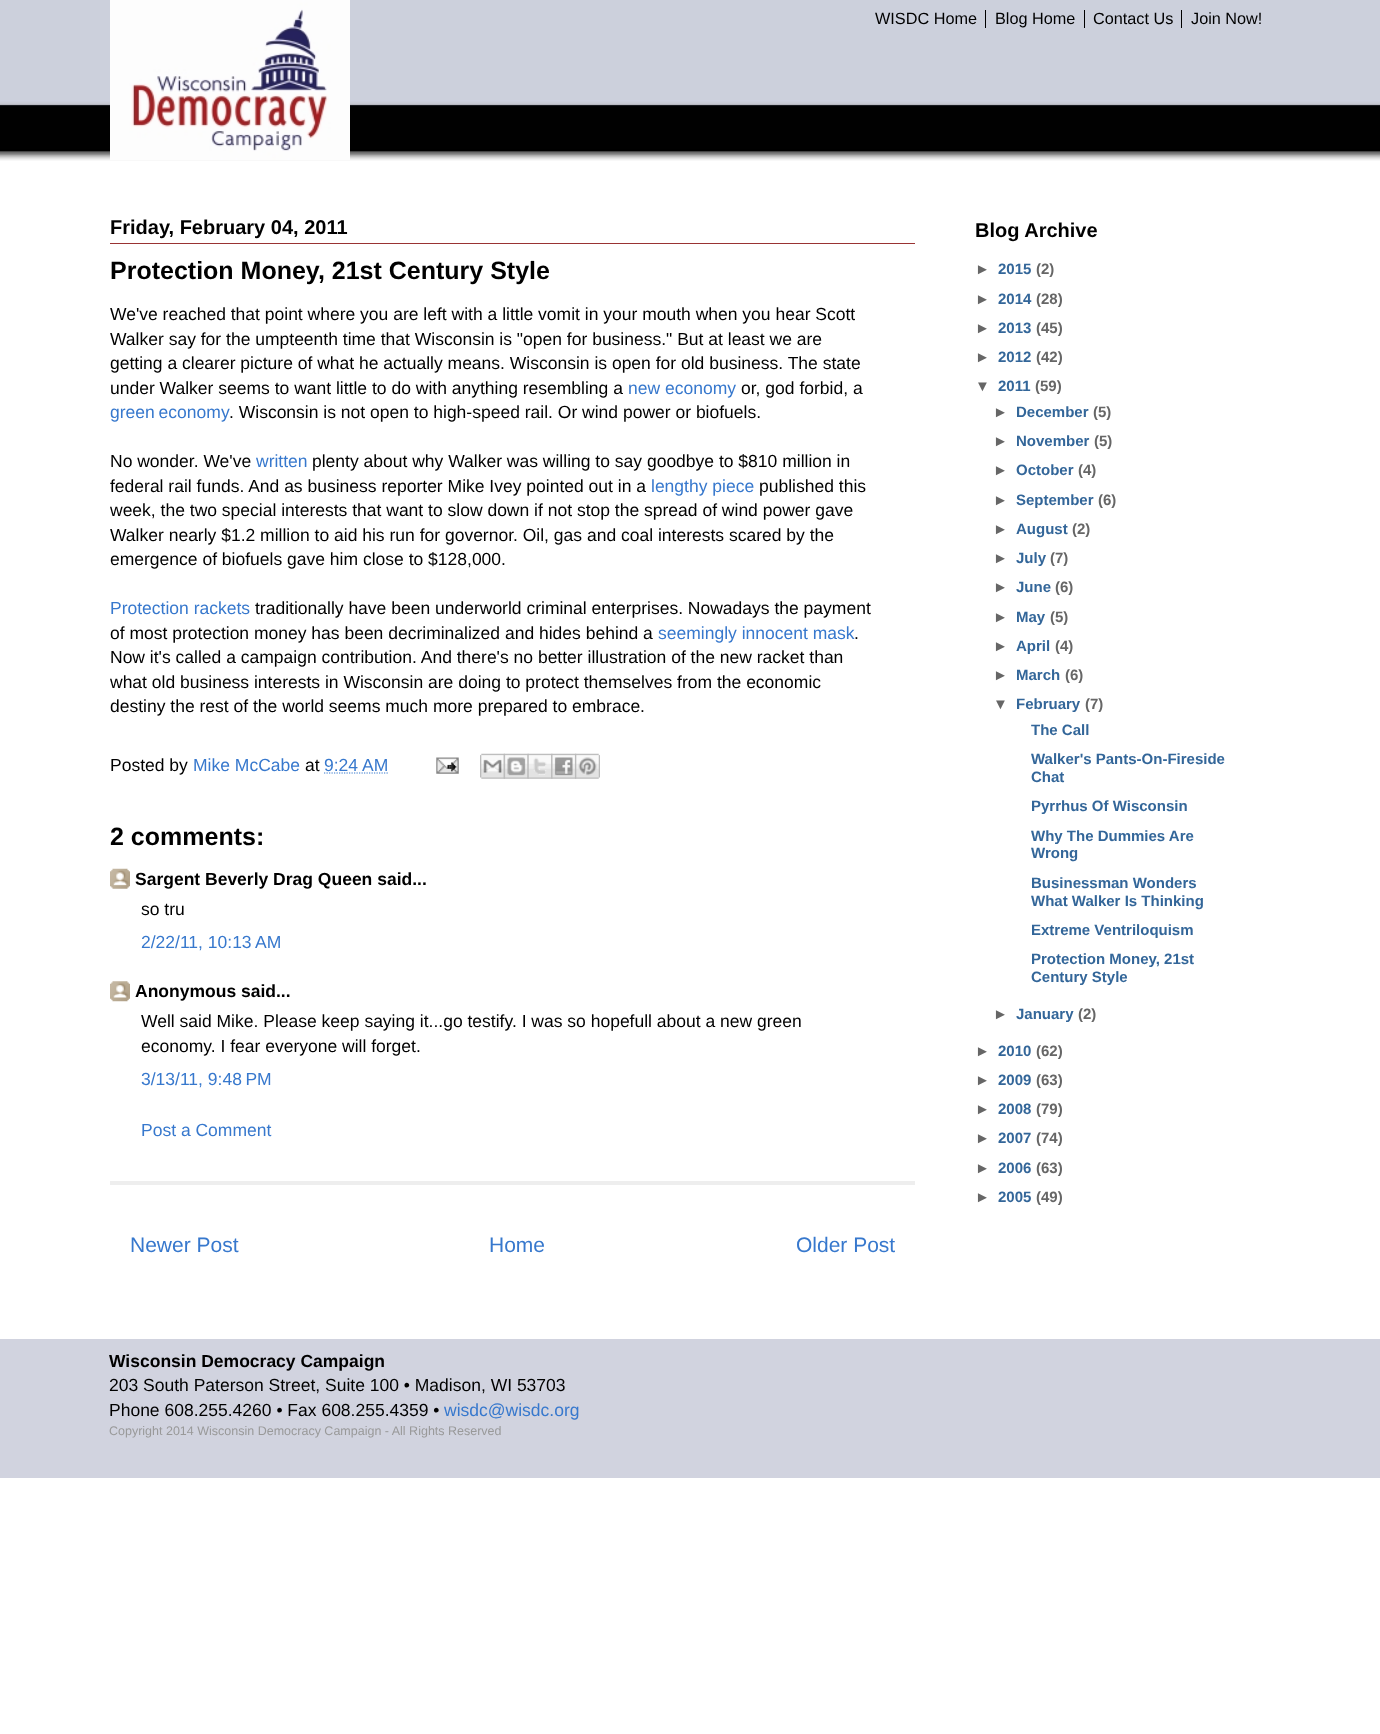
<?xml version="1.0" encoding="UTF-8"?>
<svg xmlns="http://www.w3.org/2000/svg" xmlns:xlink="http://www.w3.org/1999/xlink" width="1380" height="1734">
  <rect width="100%" height="100%" fill="#ffffff" />
  <image x="0" y="0" width="1380" height="161" xlink:href="image1.png" />
  <image x="110" y="0" width="240" height="160" xlink:href="image2.png" />
  <rect x="985" y="10" width="1" height="18" fill="#000000" />
  <rect x="1084" y="10" width="1" height="18" fill="#000000" />
  <rect x="1181" y="10" width="1" height="18" fill="#000000" />
  <rect x="110" y="1181" width="805" height="4" fill="#eeeeee" />
  <rect x="110" y="243" width="805" height="1" fill="#993333" />
  <path d="M 324 773 h 64" fill="none" stroke="#3778cd" stroke-width="1.2" stroke-dasharray="1.25 1.25" />
  <image x="436" y="757" width="23" height="17" xlink:href="image3.png" />
  <image x="480" y="753" width="25" height="26" xlink:href="image4.png" />
  <image x="503" y="753" width="26" height="26" xlink:href="image5.png" />
  <image x="527" y="753" width="26" height="26" xlink:href="image6.png" />
  <image x="551" y="753" width="26" height="26" xlink:href="image7.png" />
  <image x="575" y="753" width="25" height="26" xlink:href="image8.png" />
  <image x="110" y="868" width="20" height="21" xlink:href="image9.png" />
  <image x="110" y="981" width="20" height="21" xlink:href="image10.png" />
  <rect y="1339" width="1380" height="139" fill="#d1d3df" />
  <text x="875" y="24" style="font-family: Liberation Sans; font-size: 16.25px; fill: #000000">WISDC Home</text>
  <text x="995" y="24" style="font-family: Liberation Sans; font-size: 16.25px; fill: #000000">Blog Home</text>
  <text x="1093" y="24" style="font-family: Liberation Sans; font-size: 16.25px; fill: #000000">Contact Us</text>
  <text x="1191" y="24" style="font-family: Liberation Sans; font-size: 16.25px; fill: #000000">Join Now!</text>
  <text x="110" y="234" style="font-family: Liberation Sans; font-size: 20px; font-weight: bold; fill: #000000">Friday, February 04, 2011</text>
  <text x="110" y="279" style="font-family: Liberation Sans; font-size: 25px; font-weight: bold; fill: #000000">Protection Money, 21st Century Style</text>
  <text x="110" y="320" style="font-family: Liberation Sans; font-size: 17.5px; fill: #000000">We've reached that point where you are left with a little vomit in your mouth when you hear Scott</text>
  <text x="110" y="345" style="font-family: Liberation Sans; font-size: 17.5px; fill: #000000">Walker say for the umpteenth time that Wisconsin is "open for business." But at least we are</text>
  <text x="110" y="369" style="font-family: Liberation Sans; font-size: 17.5px; fill: #000000">getting a clearer picture of what he actually means. Wisconsin is open for old business. The state</text>
  <text x="110" y="394" style="font-family: Liberation Sans; font-size: 17.5px; fill: #000000">under Walker seems to want little to do with anything resembling a</text>
  <text x="628" y="394" style="font-family: Liberation Sans; font-size: 17.5px; fill: #3778cd">new economy</text>
  <text x="741" y="394" style="font-family: Liberation Sans; font-size: 17.5px; fill: #000000">or, god forbid, a</text>
  <text x="110" y="418" word-spacing="-1" style="font-family: Liberation Sans; font-size: 17.5px; fill: #3778cd">green economy</text>
  <text x="229" y="418" style="font-family: Liberation Sans; font-size: 17.5px; fill: #000000">. Wisconsin is not open to high-speed rail. Or wind power or biofuels.</text>
  <text x="110" y="467" style="font-family: Liberation Sans; font-size: 17.5px; fill: #000000">No wonder. We've</text>
  <text x="256" y="467" style="font-family: Liberation Sans; font-size: 17.5px; fill: #3778cd">written</text>
  <text x="312" y="467" style="font-family: Liberation Sans; font-size: 17.5px; fill: #000000">plenty about why Walker was willing to say goodbye to $810 million in</text>
  <text x="110" y="492" style="font-family: Liberation Sans; font-size: 17.5px; fill: #000000">federal rail funds. And as business reporter Mike Ivey pointed out in a</text>
  <text x="651" y="492" style="font-family: Liberation Sans; font-size: 17.5px; fill: #3778cd">lengthy piece</text>
  <text x="759" y="492" style="font-family: Liberation Sans; font-size: 17.5px; fill: #000000">published this</text>
  <text x="110" y="516" style="font-family: Liberation Sans; font-size: 17.5px; fill: #000000">week, the two special interests that want to slow down if not stop the spread of wind power gave</text>
  <text x="110" y="541" style="font-family: Liberation Sans; font-size: 17.5px; fill: #000000">Walker nearly $1.2 million to aid his run for governor. Oil, gas and coal interests scared by the</text>
  <text x="110" y="565" style="font-family: Liberation Sans; font-size: 17.5px; fill: #000000">emergence of biofuels gave him close to $128,000.</text>
  <text x="110" y="614" style="font-family: Liberation Sans; font-size: 17.5px; fill: #3778cd">Protection rackets</text>
  <text x="255" y="614" style="font-family: Liberation Sans; font-size: 17.5px; fill: #000000">traditionally have been underworld criminal enterprises. Nowadays the payment</text>
  <text x="110" y="639" style="font-family: Liberation Sans; font-size: 17.5px; fill: #000000">of most protection money has been decriminalized and hides behind a</text>
  <text x="658" y="639" style="font-family: Liberation Sans; font-size: 17.5px; fill: #3778cd">seemingly innocent mask</text>
  <text x="854" y="639" style="font-family: Liberation Sans; font-size: 17.5px; fill: #000000">.</text>
  <text x="110" y="663" style="font-family: Liberation Sans; font-size: 17.5px; fill: #000000">Now it's called a campaign contribution. And there's no better illustration of the new racket than</text>
  <text x="110" y="688" style="font-family: Liberation Sans; font-size: 17.5px; fill: #000000">what old business interests in Wisconsin are doing to protect themselves from the economic</text>
  <text x="110" y="712" style="font-family: Liberation Sans; font-size: 17.5px; fill: #000000">destiny the rest of the world seems much more prepared to embrace.</text>
  <text x="110" y="771" style="font-family: Liberation Sans; font-size: 17.5px; fill: #000000">Posted by</text>
  <text x="193" y="771" style="font-family: Liberation Sans; font-size: 17.5px; fill: #3778cd">Mike McCabe</text>
  <text x="305" y="771" style="font-family: Liberation Sans; font-size: 17.5px; fill: #000000">at</text>
  <text x="324" y="771" style="font-family: Liberation Sans; font-size: 17.5px; fill: #3778cd">9:24 AM</text>
  <text x="110" y="845" style="font-family: Liberation Sans; font-size: 25px; font-weight: bold; fill: #000000">2 comments:</text>
  <text x="135" y="885" style="font-family: Liberation Sans; font-size: 17.5px; font-weight: bold; fill: #000000">Sargent Beverly Drag Queen said...</text>
  <text x="141" y="915" style="font-family: Liberation Sans; font-size: 17.5px; fill: #000000">so tru</text>
  <text x="141" y="948" style="font-family: Liberation Sans; font-size: 17.5px; fill: #3778cd">2/22/11, 10:13 AM</text>
  <text x="135" y="997" style="font-family: Liberation Sans; font-size: 17.5px; font-weight: bold; fill: #000000">Anonymous said...</text>
  <text x="141" y="1027" style="font-family: Liberation Sans; font-size: 17.5px; fill: #000000">Well said Mike. Please keep saying it...go testify. I was so hopefull about a new green</text>
  <text x="141" y="1052" style="font-family: Liberation Sans; font-size: 17.5px; fill: #000000">economy. I fear everyone will forget.</text>
  <text x="141" y="1085" style="font-family: Liberation Sans; font-size: 17.5px; fill: #3778cd">3/13/11, 9:48 PM</text>
  <text x="141" y="1136" style="font-family: Liberation Sans; font-size: 17.5px; fill: #3778cd">Post a Comment</text>
  <text x="130" y="1252" style="font-family: Liberation Sans; font-size: 21px; fill: #3778cd">Newer Post</text>
  <text x="489" y="1252" style="font-family: Liberation Sans; font-size: 21px; fill: #3778cd">Home</text>
  <text x="796" y="1252" style="font-family: Liberation Sans; font-size: 21px; fill: #3778cd">Older Post</text>
  <text x="975" y="237" style="font-family: Liberation Sans; font-size: 20px; font-weight: bold; fill: #000000">Blog Archive</text>
  <text x="975" y="274" style="font-family: Liberation Sans; font-size: 15px; font-weight: bold; fill: #666666">►</text>
  <text x="998" y="274" style="font-family: Liberation Sans; font-size: 15px; font-weight: bold; fill: #336699">2015</text>
  <text x="1036" y="274" style="font-family: Liberation Sans; font-size: 15px; font-weight: bold; fill: #666666">(2)</text>
  <text x="975" y="304" style="font-family: Liberation Sans; font-size: 15px; font-weight: bold; fill: #666666">►</text>
  <text x="998" y="304" style="font-family: Liberation Sans; font-size: 15px; font-weight: bold; fill: #336699">2014</text>
  <text x="1036" y="304" style="font-family: Liberation Sans; font-size: 15px; font-weight: bold; fill: #666666">(28)</text>
  <text x="975" y="333" style="font-family: Liberation Sans; font-size: 15px; font-weight: bold; fill: #666666">►</text>
  <text x="998" y="333" style="font-family: Liberation Sans; font-size: 15px; font-weight: bold; fill: #336699">2013</text>
  <text x="1036" y="333" style="font-family: Liberation Sans; font-size: 15px; font-weight: bold; fill: #666666">(45)</text>
  <text x="975" y="362" style="font-family: Liberation Sans; font-size: 15px; font-weight: bold; fill: #666666">►</text>
  <text x="998" y="362" style="font-family: Liberation Sans; font-size: 15px; font-weight: bold; fill: #336699">2012</text>
  <text x="1036" y="362" style="font-family: Liberation Sans; font-size: 15px; font-weight: bold; fill: #666666">(42)</text>
  <text x="975" y="391" style="font-family: Liberation Sans; font-size: 15px; font-weight: bold; fill: #666666">▼</text>
  <text x="998" y="391" style="font-family: Liberation Sans; font-size: 15px; font-weight: bold; fill: #336699">2011</text>
  <text x="1035" y="391" style="font-family: Liberation Sans; font-size: 15px; font-weight: bold; fill: #666666">(59)</text>
  <text x="993" y="417" style="font-family: Liberation Sans; font-size: 15px; font-weight: bold; fill: #666666">►</text>
  <text x="1016" y="417" style="font-family: Liberation Sans; font-size: 15px; font-weight: bold; fill: #336699">December</text>
  <text x="1093" y="417" style="font-family: Liberation Sans; font-size: 15px; font-weight: bold; fill: #666666">(5)</text>
  <text x="993" y="446" style="font-family: Liberation Sans; font-size: 15px; font-weight: bold; fill: #666666">►</text>
  <text x="1016" y="446" style="font-family: Liberation Sans; font-size: 15px; font-weight: bold; fill: #336699">November</text>
  <text x="1094" y="446" style="font-family: Liberation Sans; font-size: 15px; font-weight: bold; fill: #666666">(5)</text>
  <text x="993" y="475" style="font-family: Liberation Sans; font-size: 15px; font-weight: bold; fill: #666666">►</text>
  <text x="1016" y="475" style="font-family: Liberation Sans; font-size: 15px; font-weight: bold; fill: #336699">October</text>
  <text x="1078" y="475" style="font-family: Liberation Sans; font-size: 15px; font-weight: bold; fill: #666666">(4)</text>
  <text x="993" y="505" style="font-family: Liberation Sans; font-size: 15px; font-weight: bold; fill: #666666">►</text>
  <text x="1016" y="505" style="font-family: Liberation Sans; font-size: 15px; font-weight: bold; fill: #336699">September</text>
  <text x="1098" y="505" style="font-family: Liberation Sans; font-size: 15px; font-weight: bold; fill: #666666">(6)</text>
  <text x="993" y="534" style="font-family: Liberation Sans; font-size: 15px; font-weight: bold; fill: #666666">►</text>
  <text x="1016" y="534" style="font-family: Liberation Sans; font-size: 15px; font-weight: bold; fill: #336699">August</text>
  <text x="1072" y="534" style="font-family: Liberation Sans; font-size: 15px; font-weight: bold; fill: #666666">(2)</text>
  <text x="993" y="563" style="font-family: Liberation Sans; font-size: 15px; font-weight: bold; fill: #666666">►</text>
  <text x="1016" y="563" style="font-family: Liberation Sans; font-size: 15px; font-weight: bold; fill: #336699">July</text>
  <text x="1050" y="563" style="font-family: Liberation Sans; font-size: 15px; font-weight: bold; fill: #666666">(7)</text>
  <text x="993" y="592" style="font-family: Liberation Sans; font-size: 15px; font-weight: bold; fill: #666666">►</text>
  <text x="1016" y="592" style="font-family: Liberation Sans; font-size: 15px; font-weight: bold; fill: #336699">June</text>
  <text x="1055" y="592" style="font-family: Liberation Sans; font-size: 15px; font-weight: bold; fill: #666666">(6)</text>
  <text x="993" y="622" style="font-family: Liberation Sans; font-size: 15px; font-weight: bold; fill: #666666">►</text>
  <text x="1016" y="622" style="font-family: Liberation Sans; font-size: 15px; font-weight: bold; fill: #336699">May</text>
  <text x="1050" y="622" style="font-family: Liberation Sans; font-size: 15px; font-weight: bold; fill: #666666">(5)</text>
  <text x="993" y="651" style="font-family: Liberation Sans; font-size: 15px; font-weight: bold; fill: #666666">►</text>
  <text x="1016" y="651" style="font-family: Liberation Sans; font-size: 15px; font-weight: bold; fill: #336699">April</text>
  <text x="1055" y="651" style="font-family: Liberation Sans; font-size: 15px; font-weight: bold; fill: #666666">(4)</text>
  <text x="993" y="680" style="font-family: Liberation Sans; font-size: 15px; font-weight: bold; fill: #666666">►</text>
  <text x="1016" y="680" style="font-family: Liberation Sans; font-size: 15px; font-weight: bold; fill: #336699">March</text>
  <text x="1065" y="680" style="font-family: Liberation Sans; font-size: 15px; font-weight: bold; fill: #666666">(6)</text>
  <text x="993" y="709" style="font-family: Liberation Sans; font-size: 15px; font-weight: bold; fill: #666666">▼</text>
  <text x="1016" y="709" style="font-family: Liberation Sans; font-size: 15px; font-weight: bold; fill: #336699">February</text>
  <text x="1085" y="709" style="font-family: Liberation Sans; font-size: 15px; font-weight: bold; fill: #666666">(7)</text>
  <text x="1031" y="735" style="font-family: Liberation Sans; font-size: 15px; font-weight: bold; fill: #336699">The Call</text>
  <text x="1031" y="764" style="font-family: Liberation Sans; font-size: 15px; font-weight: bold; fill: #336699">Walker's Pants-On-Fireside</text>
  <text x="1031" y="782" style="font-family: Liberation Sans; font-size: 15px; font-weight: bold; fill: #336699">Chat</text>
  <text x="1031" y="811" style="font-family: Liberation Sans; font-size: 15px; font-weight: bold; fill: #336699">Pyrrhus Of Wisconsin</text>
  <text x="1031" y="841" style="font-family: Liberation Sans; font-size: 15px; font-weight: bold; fill: #336699">Why The Dummies Are</text>
  <text x="1031" y="858" style="font-family: Liberation Sans; font-size: 15px; font-weight: bold; fill: #336699">Wrong</text>
  <text x="1031" y="888" style="font-family: Liberation Sans; font-size: 15px; font-weight: bold; fill: #336699">Businessman Wonders</text>
  <text x="1031" y="906" style="font-family: Liberation Sans; font-size: 15px; font-weight: bold; fill: #336699">What Walker Is Thinking</text>
  <text x="1031" y="935" style="font-family: Liberation Sans; font-size: 15px; font-weight: bold; fill: #336699">Extreme Ventriloquism</text>
  <text x="1031" y="964" style="font-family: Liberation Sans; font-size: 15px; font-weight: bold; fill: #336699">Protection Money, 21st</text>
  <text x="1031" y="982" style="font-family: Liberation Sans; font-size: 15px; font-weight: bold; fill: #336699">Century Style</text>
  <text x="993" y="1019" style="font-family: Liberation Sans; font-size: 15px; font-weight: bold; fill: #666666">►</text>
  <text x="1016" y="1019" style="font-family: Liberation Sans; font-size: 15px; font-weight: bold; fill: #336699">January</text>
  <text x="1078" y="1019" style="font-family: Liberation Sans; font-size: 15px; font-weight: bold; fill: #666666">(2)</text>
  <text x="975" y="1056" style="font-family: Liberation Sans; font-size: 15px; font-weight: bold; fill: #666666">►</text>
  <text x="998" y="1056" style="font-family: Liberation Sans; font-size: 15px; font-weight: bold; fill: #336699">2010</text>
  <text x="1036" y="1056" style="font-family: Liberation Sans; font-size: 15px; font-weight: bold; fill: #666666">(62)</text>
  <text x="975" y="1085" style="font-family: Liberation Sans; font-size: 15px; font-weight: bold; fill: #666666">►</text>
  <text x="998" y="1085" style="font-family: Liberation Sans; font-size: 15px; font-weight: bold; fill: #336699">2009</text>
  <text x="1036" y="1085" style="font-family: Liberation Sans; font-size: 15px; font-weight: bold; fill: #666666">(63)</text>
  <text x="975" y="1114" style="font-family: Liberation Sans; font-size: 15px; font-weight: bold; fill: #666666">►</text>
  <text x="998" y="1114" style="font-family: Liberation Sans; font-size: 15px; font-weight: bold; fill: #336699">2008</text>
  <text x="1036" y="1114" style="font-family: Liberation Sans; font-size: 15px; font-weight: bold; fill: #666666">(79)</text>
  <text x="975" y="1143" style="font-family: Liberation Sans; font-size: 15px; font-weight: bold; fill: #666666">►</text>
  <text x="998" y="1143" style="font-family: Liberation Sans; font-size: 15px; font-weight: bold; fill: #336699">2007</text>
  <text x="1036" y="1143" style="font-family: Liberation Sans; font-size: 15px; font-weight: bold; fill: #666666">(74)</text>
  <text x="975" y="1173" style="font-family: Liberation Sans; font-size: 15px; font-weight: bold; fill: #666666">►</text>
  <text x="998" y="1173" style="font-family: Liberation Sans; font-size: 15px; font-weight: bold; fill: #336699">2006</text>
  <text x="1036" y="1173" style="font-family: Liberation Sans; font-size: 15px; font-weight: bold; fill: #666666">(63)</text>
  <text x="975" y="1202" style="font-family: Liberation Sans; font-size: 15px; font-weight: bold; fill: #666666">►</text>
  <text x="998" y="1202" style="font-family: Liberation Sans; font-size: 15px; font-weight: bold; fill: #336699">2005</text>
  <text x="1036" y="1202" style="font-family: Liberation Sans; font-size: 15px; font-weight: bold; fill: #666666">(49)</text>
  <text x="109" y="1367" style="font-family: Liberation Sans; font-size: 17.5px; font-weight: bold; fill: #000000">Wisconsin Democracy Campaign</text>
  <text x="109" y="1391" style="font-family: Liberation Sans; font-size: 17.5px; fill: #000000">203 South Paterson Street, Suite 100 • Madison, WI 53703</text>
  <text x="109" y="1416" style="font-family: Liberation Sans; font-size: 17.5px; fill: #000000">Phone 608.255.4260 • Fax 608.255.4359 •</text>
  <text x="444" y="1416" style="font-family: Liberation Sans; font-size: 17.5px; fill: #3778cd">wisdc@wisdc.org</text>
  <text x="109" y="1435" style="font-family: Liberation Sans; font-size: 12.5px; fill: #999999">Copyright 2014 Wisconsin Democracy Campaign - All Rights Reserved</text>
</svg>
